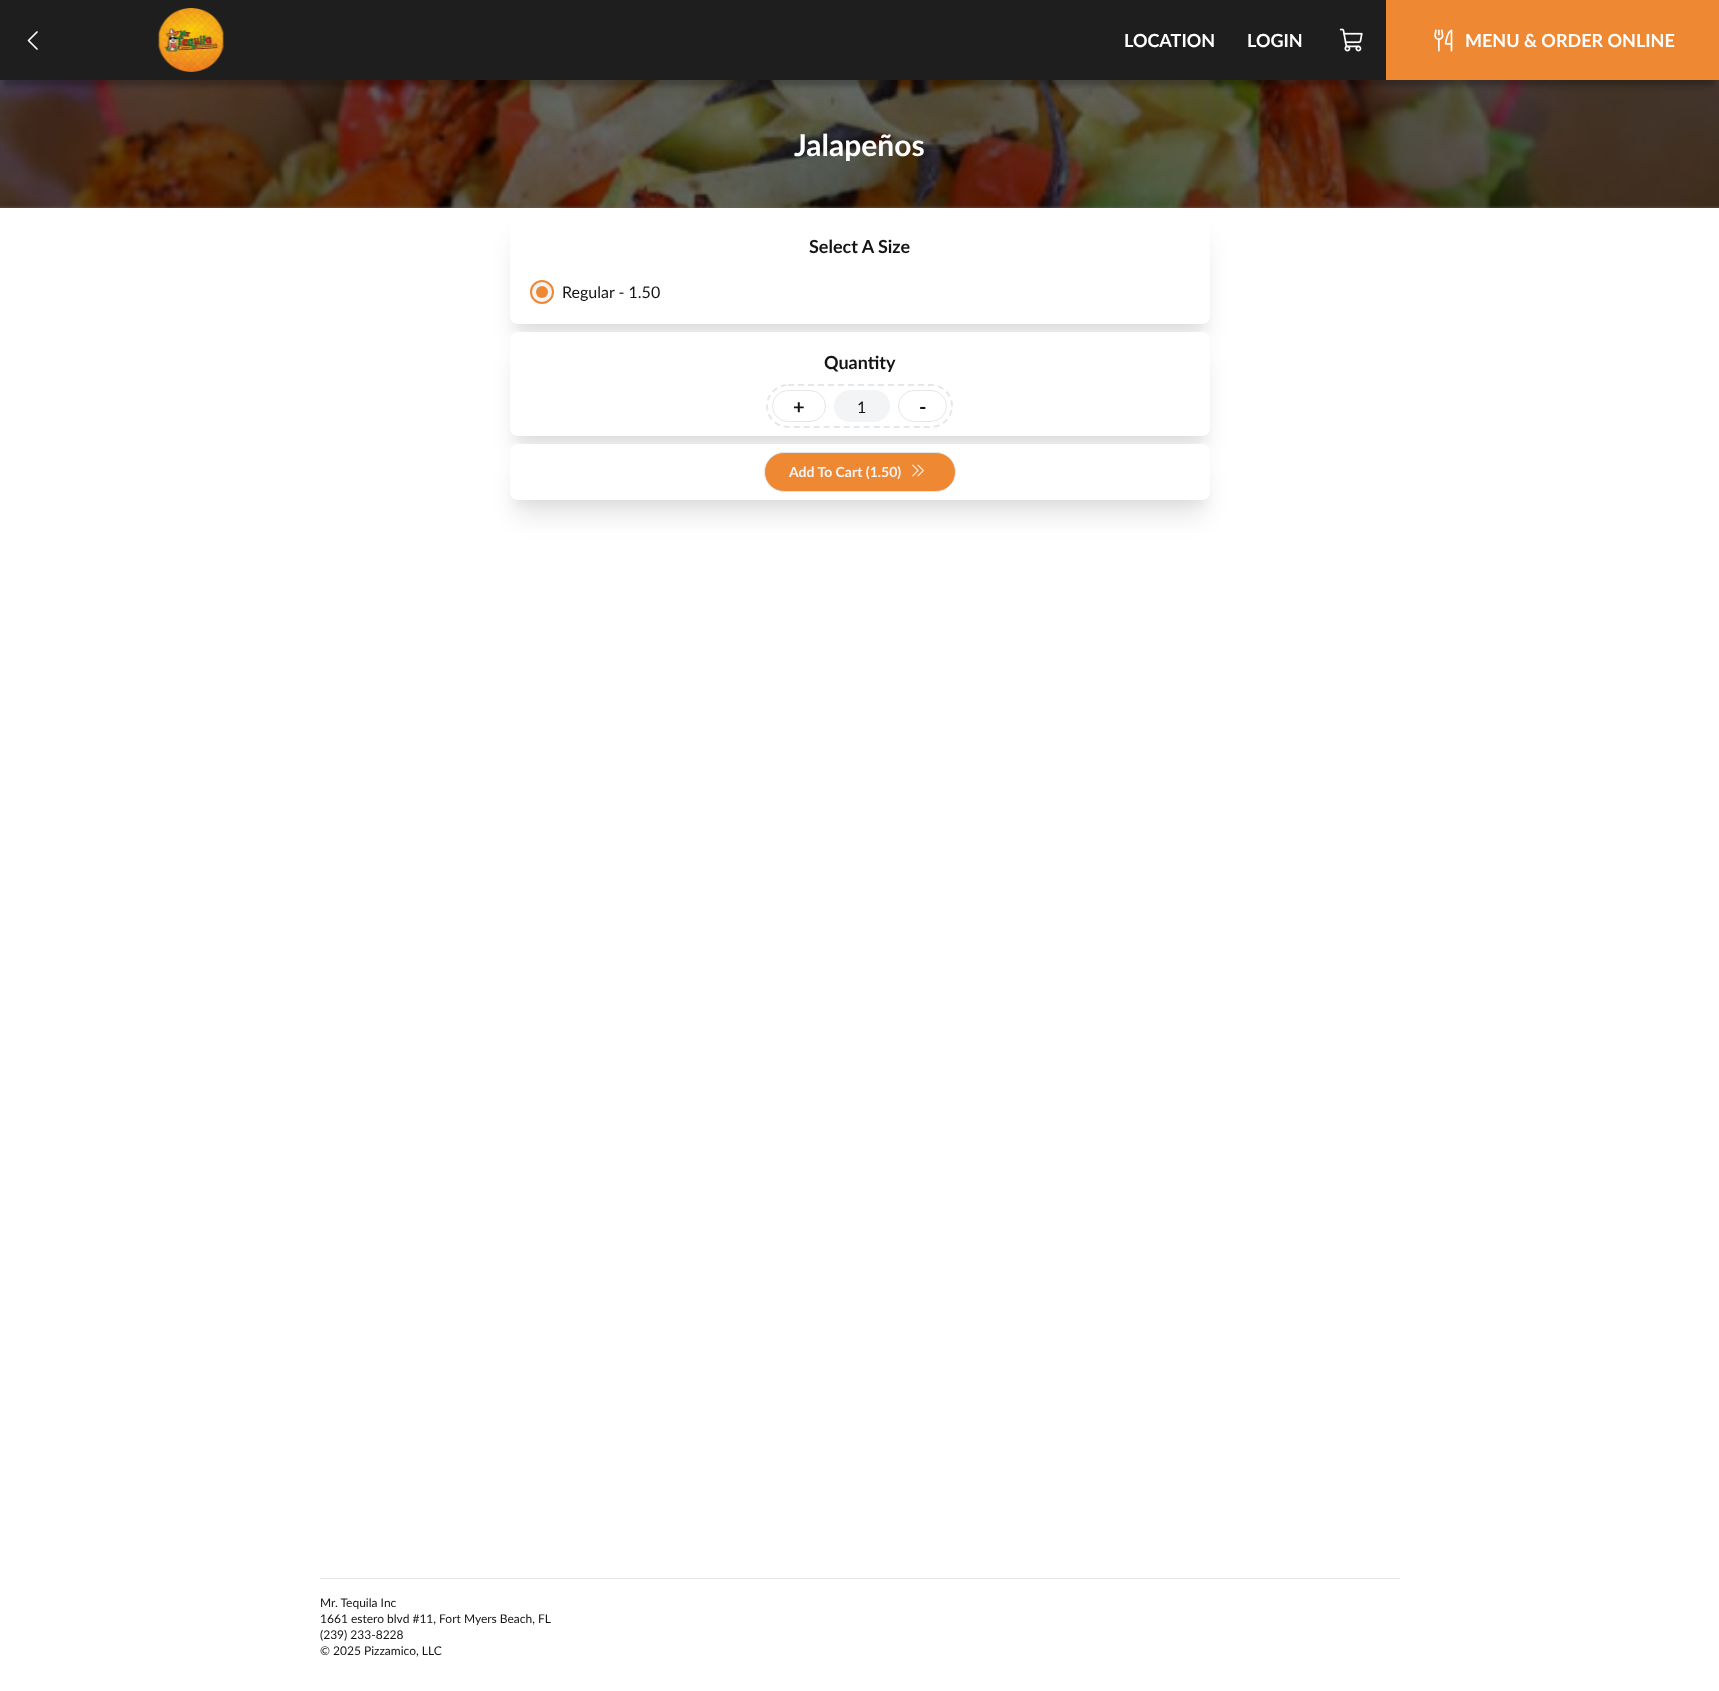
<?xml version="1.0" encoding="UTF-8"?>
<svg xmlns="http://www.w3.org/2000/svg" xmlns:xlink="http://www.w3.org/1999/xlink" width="1719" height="1691">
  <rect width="100%" height="100%" fill="#ffffff" />
  <rect y="205" width="1719" height="3" fill="#666666" />
  <rect x="515" y="241" width="690" height="98" rx="3" fill="#000000" fill-opacity="0.1" filter="blur(12.5px)" />
  <image x="0" y="80" width="1719" height="128" xlink:href="image4.png" />
  <rect x="4" y="14" width="1711" height="72" fill="#000000" fill-opacity="0.25" filter="blur(2.5px)" />
  <rect width="1386" height="80" fill="#1e1e1e" />
  <path d="M 37 49 l -8.5 -8.5 l 8.5 -8.5" fill="none" stroke="#ffffff" stroke-width="1.7" stroke-linecap="round" stroke-linejoin="round" />
  <image x="158" y="8" width="66" height="64" xlink:href="image1.png" />
  <image x="1339" y="28" width="24" height="24" xlink:href="image2.png" />
  <rect x="1386" width="333" height="80" fill="#ee8833" />
  <image x="1434" y="29" width="19" height="23" xlink:href="image3.png" />
  <rect x="515" y="231" width="690" height="98" rx="3" fill="#000000" fill-opacity="0.04" filter="blur(5px)" />
  <rect x="510" y="216" width="700" height="108" rx="8" fill="#ffffff" />
  <circle cx="542" cy="292" r="11" fill="#f3f4f6" stroke="#ee8833" stroke-width="2" />
  <circle cx="542" cy="292" r="6" fill="#ee8833" />
  <rect x="515" y="347" width="690" height="94" rx="3" fill="#000000" fill-opacity="0.04" filter="blur(5px)" />
  <rect x="515" y="357" width="690" height="94" rx="3" fill="#000000" fill-opacity="0.1" filter="blur(12.5px)" />
  <rect x="510" y="332" width="700" height="104" rx="8" fill="#ffffff" />
  <path d="M 788 385 h 143 c 11.5 0 21 9.5 21 21 c 0 11.5 -9.5 21 -21 21 h -143 c -11.5 0 -21 -9.5 -21 -21 c 0 -11.5 9.5 -21 21 -21 z" fill="none" stroke="#e5e7eb" stroke-width="2" stroke-dasharray="6 4" />
  <rect x="772.5" y="390.5" width="53" height="31" rx="15.5" fill="none" stroke="#e5e7eb" />
  <rect x="834" y="390" width="56" height="32" rx="16" fill="#f3f4f6" />
  <rect x="898.5" y="390.5" width="48" height="31" rx="15.5" fill="none" stroke="#e5e7eb" />
  <rect x="515" y="459" width="690" height="46" rx="3" fill="#000000" fill-opacity="0.04" filter="blur(5px)" />
  <rect x="515" y="469" width="690" height="46" rx="3" fill="#000000" fill-opacity="0.1" filter="blur(12.5px)" />
  <rect x="510" y="444" width="700" height="56" rx="8" fill="#ffffff" />
  <rect x="764.5" y="452.5" width="191" height="39" rx="19.5" fill="#ee8833" stroke="#e5e7eb" />
  <image x="912" y="464" width="12" height="13" xlink:href="image5.png" />
  <rect x="320" y="1578" width="1080" height="1" fill="#e5e7eb" />
  <text x="1124" y="47" style="font-family: Lato; font-size: 18px; font-weight: bold; fill: #ffffff">LOCATION</text>
  <text x="1247" y="47" style="font-family: Lato; font-size: 18px; font-weight: bold; fill: #ffffff">LOGIN</text>
  <text x="1465" y="47" style="font-family: Lato; font-size: 18px; font-weight: bold; fill: #ffffff">MENU &amp; ORDER ONLINE</text>
  <text x="794" y="156" style="font-family: Lato; font-size: 30px; font-weight: bold; fill: #ffffff">Jalapeños</text>
  <text x="809" y="253" style="font-family: Lato; font-size: 18px; font-weight: bold; fill: #141414">Select A Size</text>
  <text x="562" y="298" style="font-family: Lato; font-size: 16px; fill: #141414">Regular - 1.50</text>
  <text x="824" y="369" style="font-family: Lato; font-size: 18px; font-weight: bold; fill: #141414">Quantity</text>
  <text x="793" y="414" style="font-family: Lato; font-size: 20px; font-weight: bold; fill: #141414">+</text>
  <text x="857" y="413" style="font-family: Lato; font-size: 16px; fill: #141414">1</text>
  <text x="919" y="414" style="font-family: Lato; font-size: 20px; font-weight: bold; fill: #141414">-</text>
  <text x="789" y="477" style="font-family: Lato; font-size: 14px; font-weight: bold; fill: #f5f5f5">Add To Cart (1.50)</text>
  <text x="320" y="1607" style="font-family: Lato; font-size: 12px; fill: #141414">Mr. Tequila Inc</text>
  <text x="320" y="1623" style="font-family: Lato; font-size: 12px; fill: #141414">1661 estero blvd #11, Fort Myers Beach, FL</text>
  <text x="320" y="1639" style="font-family: Lato; font-size: 12px; fill: #141414">(239) 233-8228</text>
  <text x="320" y="1655" style="font-family: Lato; font-size: 12px; fill: #141414">© 2025 Pizzamico, LLC</text>
</svg>
